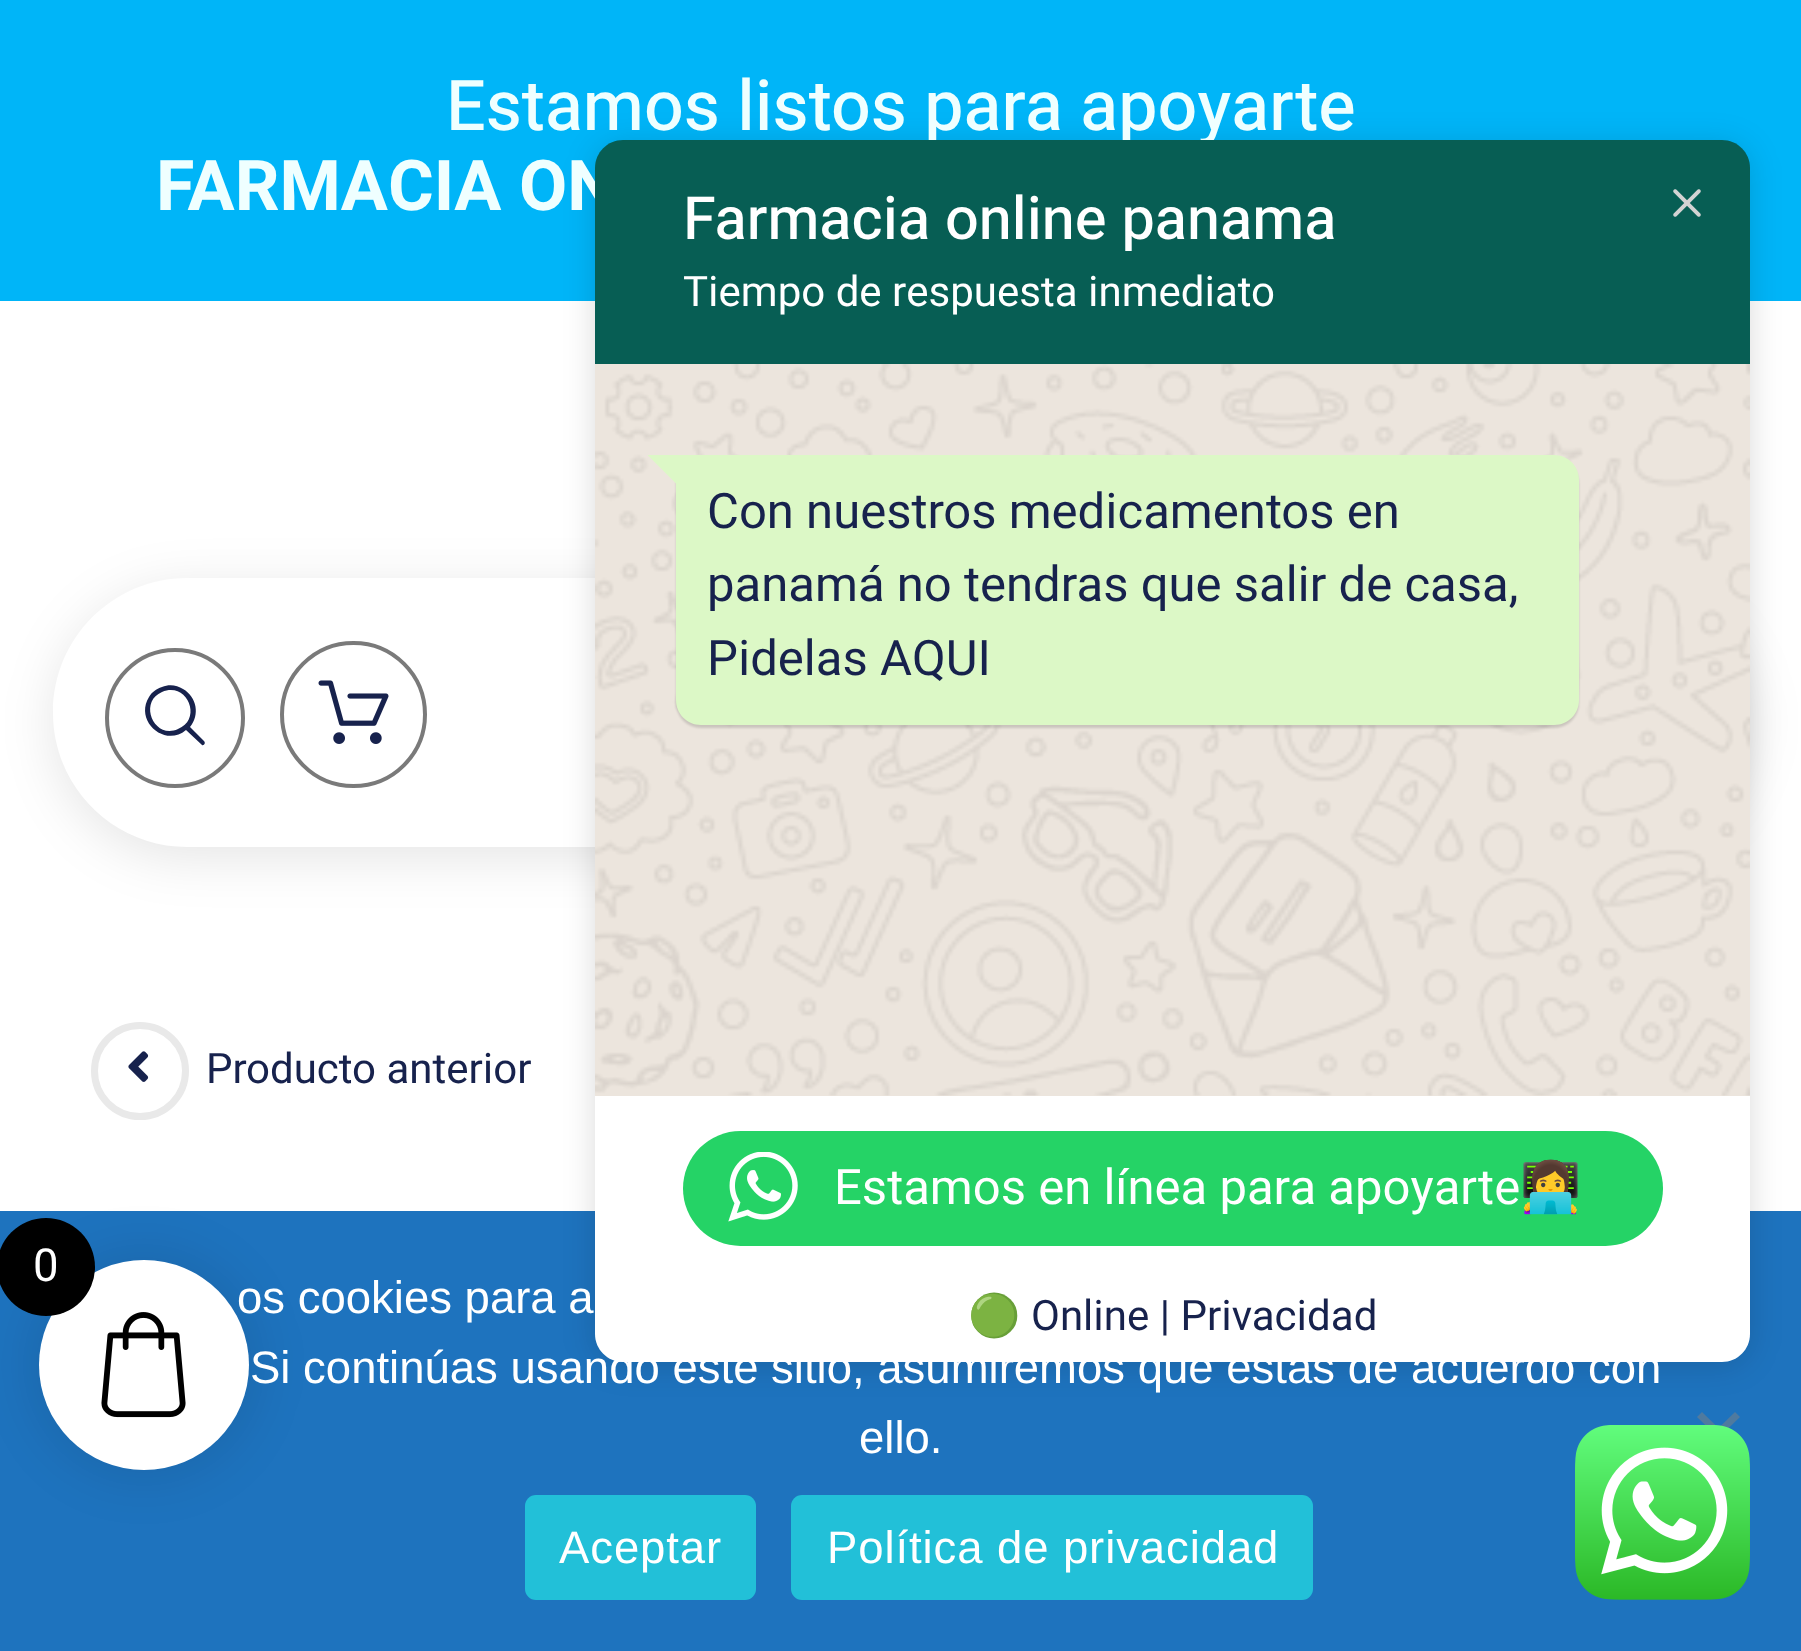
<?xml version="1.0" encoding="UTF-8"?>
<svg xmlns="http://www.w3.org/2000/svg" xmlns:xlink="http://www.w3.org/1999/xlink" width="1801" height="1651">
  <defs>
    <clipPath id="clip1"><path d="M 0 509 h 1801 v 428 h -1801 z m 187.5 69 h 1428 c 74.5 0 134.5 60 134.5 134.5 c 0 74.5 -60 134.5 -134.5 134.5 h -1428 c -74.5 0 -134.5 -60 -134.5 -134.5 c 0 -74.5 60 -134.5 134.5 -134.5 z" clip-rule="evenodd" /></clipPath>
  </defs>
  <rect width="100%" height="100%" fill="#ffffff" />
  <rect width="1801" height="301" fill="#00b5f8" />
  <g clip-path="url(#clip1)">
    <rect x="53" y="588" width="1697" height="270" rx="135" fill="#000000" fill-opacity="0.1" filter="blur(26px)" />
  </g>
  <circle cx="175" cy="718" r="68" fill="none" stroke="#7a7a7a" stroke-width="4" />
  <path d="M 204 741 l -14 -14 c 10 -12 7 -30 -7 -38 c -6 -4 -14 -5 -21 -2 c -6 2 -10 5 -13 10 c -15 24 16 51 37 33 l 16 15 c 2 1 4 -2 2 -4 z m -26 -12 c -24 11 -40 -27 -16 -37 c 25 -11 41 27 16 37 z" fill="#17224d" />
  <circle cx="353.5" cy="714.5" r="71.5" fill="none" stroke="#7a7a7a" stroke-width="4" />
  <image x="318" y="680" width="71" height="64" xlink:href="image1.png" />
  <circle cx="140" cy="1071" r="45.5" fill="none" stroke="#e9e9e9" stroke-width="7" />
  <image x="128" y="1051" width="21" height="31" xlink:href="image2.png" />
  <rect y="1211" width="1801" height="440" fill="#1e73be" />
  <rect x="32" y="1253" width="224" height="224" rx="112" fill="#000000" fill-opacity="0.1" filter="blur(26px)" />
  <circle cx="144" cy="1365" r="105" fill="#ffffff" />
  <circle cx="46" cy="1267" r="49" fill="#000000" />
  <image x="101" y="1312" width="85" height="106" xlink:href="image3.png" />
  <path d="M 1735 1412 l 5 5 l -38 37 l -5 -5 z" fill="#4f7a9f" />
  <path d="M 1697 1417 l 5 -5 l 38 37 l -5 5 z" fill="#4f7a9f" />
  <rect x="595" y="144" width="1155" height="1221" rx="28" fill="#000000" fill-opacity="0.14" filter="blur(16px)" />
  <rect x="595" y="1096" width="1155" height="178" fill="#ffffff" />
  <rect x="683" y="1131" width="980" height="115" rx="57.5" fill="#25d366" />
  <image x="728" y="1152" width="70" height="70" xlink:href="image5.png" />
  <path d="M 595 1274 h 1155 v 60 c 0 15.5 -12.5 28 -28 28 h -1099 c -15.5 0 -28 -12.5 -28 -28 z" fill="#ffffff" />
  <image x="1575" y="1425" width="175" height="175" xlink:href="image7.png" />
  <rect x="525" y="1495" width="231" height="105" rx="11" fill="#22c0d8" />
  <rect x="791" y="1495" width="522" height="105" rx="11" fill="#22c0d8" />
  <text x="446" y="130" style="font-family: Heebo; font-size: 70px; font-weight: 500; fill: #efffff">Estamos listos para apoyarte</text>
  <text x="156" y="210" style="font-family: Heebo; font-size: 70px; font-weight: bold; fill: #efffff">FARMACIA ON</text>
  <text x="206" y="1083" style="font-family: Heebo; font-size: 42px; fill: #17224d">Producto anterior</text>
  <text x="33" y="1281" style="font-family: Heebo; font-size: 45.5px; fill: #ffffff">0</text>
  <path d="M 623 140 h 1099 c 15.5 0 28 12.5 28 28 v 200 h -1155 v -200 c 0 -15.5 12.5 -28 28 -28 z" fill="#075e54" />
  <text x="683" y="239" style="font-family: Heebo; font-size: 59.5px; font-weight: 500; fill: #ffffff">Farmacia online panama</text>
  <text x="683" y="306" style="font-family: Heebo; font-size: 42px; fill: #ffffff">Tiempo de respuesta inmediato</text>
  <rect x="595" y="364" width="1155" height="732" fill="#ece5dd" />
  <image x="595" y="364" width="1155" height="732" xlink:href="image4.png" />
  <rect x="676" y="459" width="903" height="269" rx="25" fill="#000000" fill-opacity="0.14" filter="blur(1px)" />
  <path d="M 676 455 h 878 c 14 0 25 11 25 25 v 220 c 0 14 -11 25 -25 25 h -853 c -14 0 -25 -11 -25 -25 z" fill="#dcf8c6" />
  <path d="M 648 455 h 30 v 30.5 l -30 -30 z" fill="#dcf8c6" />
  <text x="707" y="528" style="font-family: Heebo; font-size: 49px; fill: #17224d">Con nuestros medicamentos en</text>
  <text x="707" y="601" style="font-family: Heebo; font-size: 49px; fill: #17224d">panamá no tendras que salir de casa,</text>
  <text x="707" y="675" style="font-family: Heebo; font-size: 49px; fill: #17224d">Pidelas AQUI</text>
  <text x="834" y="1204" style="font-family: Heebo; font-size: 49px; fill: #ffffff">Estamos en línea para apoyarte</text>
  <text x="1520" y="1204" style="font-family: Noto Color Emoji; font-size: 49px; fill: #ffffff">👩‍💻</text>
  <text x="968" y="1330" style="font-family: Noto Color Emoji; font-size: 42px; fill: #17224d">🟢</text>
  <text x="1031" y="1330" style="font-family: Heebo; font-size: 42px; fill: #17224d">Online | Privacidad</text>
  <image x="1673" y="189" width="28" height="28" xlink:href="image6.png" />
  <text x="237" y="1313" style="font-family: Liberation Sans; font-size: 45.5px; fill: #ffffff">os cookies para a</text>
  <text x="250" y="1383" style="font-family: Liberation Sans; font-size: 45.5px; fill: #ffffff">Si continúas usando este sitio, asumiremos que estás de acuerdo con</text>
  <text x="859" y="1453" style="font-family: Liberation Sans; font-size: 45.5px; fill: #ffffff">ello.</text>
  <text x="559" y="1563" style="font-family: Liberation Sans; font-size: 45.5px; letter-spacing: 0.9px; fill: #ffffff">Aceptar</text>
  <text x="827" y="1563" style="font-family: Liberation Sans; font-size: 45.5px; letter-spacing: 0.9px; fill: #ffffff">Política de privacidad</text>
</svg>
